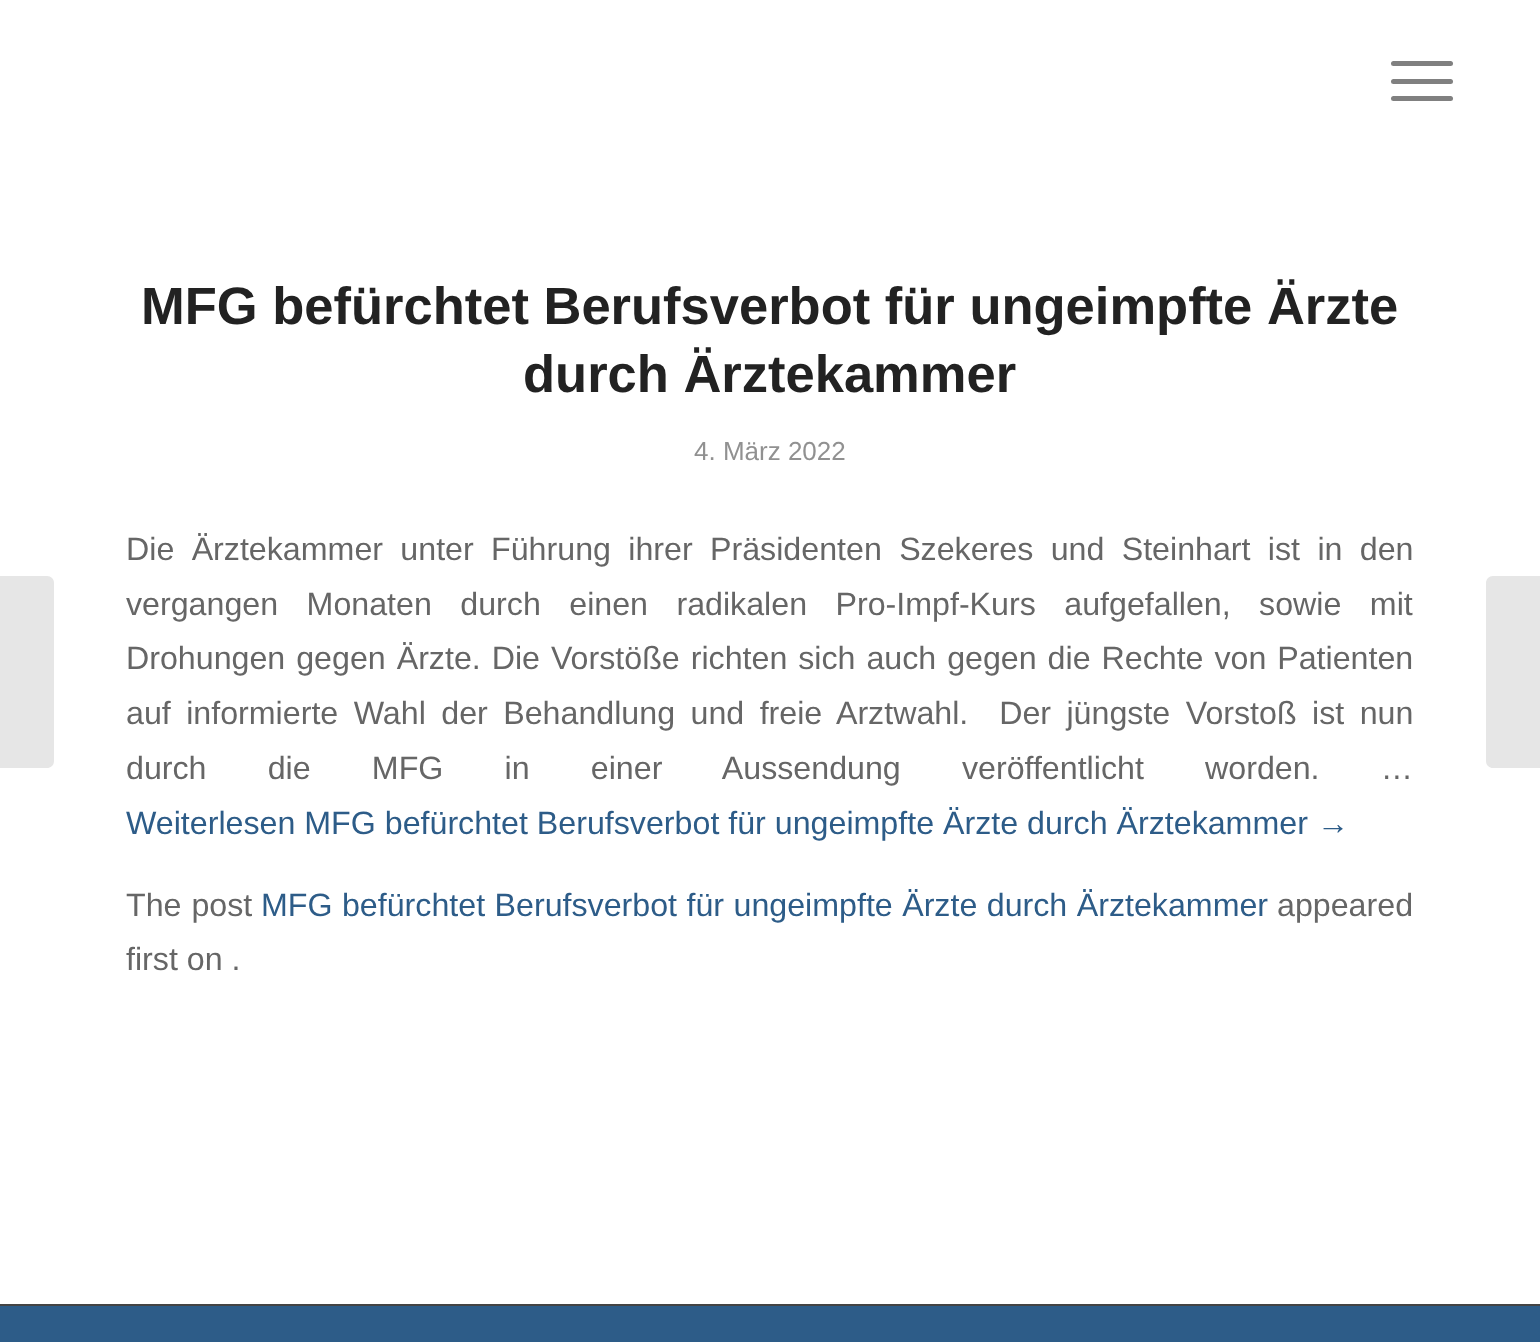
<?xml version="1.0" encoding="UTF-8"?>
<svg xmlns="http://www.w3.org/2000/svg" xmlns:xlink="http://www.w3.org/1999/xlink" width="1540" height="1342">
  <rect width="100%" height="100%" fill="#ffffff" />
  <rect x="1391" y="79" width="62" height="5" rx="2.5" fill="#808080" />
  <rect x="1391" y="61" width="62" height="5" rx="2.5" fill="#808080" />
  <rect x="1391" y="96" width="62" height="5" rx="2.5" fill="#808080" />
  <path d="M 0 576 h 47 c 4 0 7 3 7 7 v 178 c 0 4 -3 7 -7 7 h -47 z" fill="#e6e6e6" />
  <rect y="1306" width="1540" height="36" fill="#2d5c88" />
  <rect y="1304" width="1540" height="2" fill="#444444" />
  <path d="M 1493 576 h 47 v 192 h -47 c -4 0 -7 -3 -7 -7 v -178 c 0 -4 3 -7 7 -7 z" fill="#e6e6e6" />
  <text x="141" y="324" style="font-family: Liberation Sans; font-size: 52.5px; font-weight: bold; fill: #222222">MFG befürchtet Berufsverbot für ungeimpfte Ärzte</text>
  <text x="523" y="392" style="font-family: Liberation Sans; font-size: 52.5px; font-weight: bold; fill: #222222">durch Ärztekammer</text>
  <text x="694" y="460" style="font-family: Liberation Sans; font-size: 26px; fill: #919191">4. März 2022</text>
  <text x="126" y="560" word-spacing="8.4" style="font-family: Liberation Sans; font-size: 32.2px; fill: #666666">Die Ärztekammer unter Führung ihrer Präsidenten Szekeres und Steinhart ist in den</text>
  <text x="126" y="615" word-spacing="19.5" style="font-family: Liberation Sans; font-size: 32.2px; fill: #666666">vergangen Monaten durch einen radikalen Pro-Impf-Kurs aufgefallen, sowie mit</text>
  <text x="126" y="669" word-spacing="2" style="font-family: Liberation Sans; font-size: 32.2px; fill: #666666">Drohungen gegen Ärzte. Die Vorstöße richten sich auch gegen die Rechte von Patienten</text>
  <text x="126" y="724" word-spacing="6.5" style="font-family: Liberation Sans; font-size: 32.2px; fill: #666666" xml:space="preserve">auf informierte Wahl der Behandlung und freie Arztwahl.  Der jüngste Vorstoß ist nun</text>
  <text x="126" y="779" word-spacing="52.25" style="font-family: Liberation Sans; font-size: 32.2px; fill: #666666">durch die MFG in einer Aussendung veröffentlicht worden. …</text>
  <text x="126" y="834" style="font-family: Liberation Sans; font-size: 32.2px; fill: #2d5c88">Weiterlesen MFG befürchtet Berufsverbot für ungeimpfte Ärzte durch Ärztekammer</text>
  <text x="1317" y="834" style="font-family: Liberation Sans; font-size: 32.2px; fill: #2d5c88">→</text>
  <text x="126" y="916" word-spacing="1" style="font-family: Liberation Sans; font-size: 32.2px; fill: #666666">The post</text>
  <text x="261" y="916" word-spacing="0.5" style="font-family: Liberation Sans; font-size: 32.2px; fill: #2d5c88">MFG befürchtet Berufsverbot für ungeimpfte Ärzte durch Ärztekammer</text>
  <text x="1277" y="916" style="font-family: Liberation Sans; font-size: 32.2px; fill: #666666">appeared</text>
  <text x="126" y="970" style="font-family: Liberation Sans; font-size: 32.2px; fill: #666666">first on .</text>
</svg>
